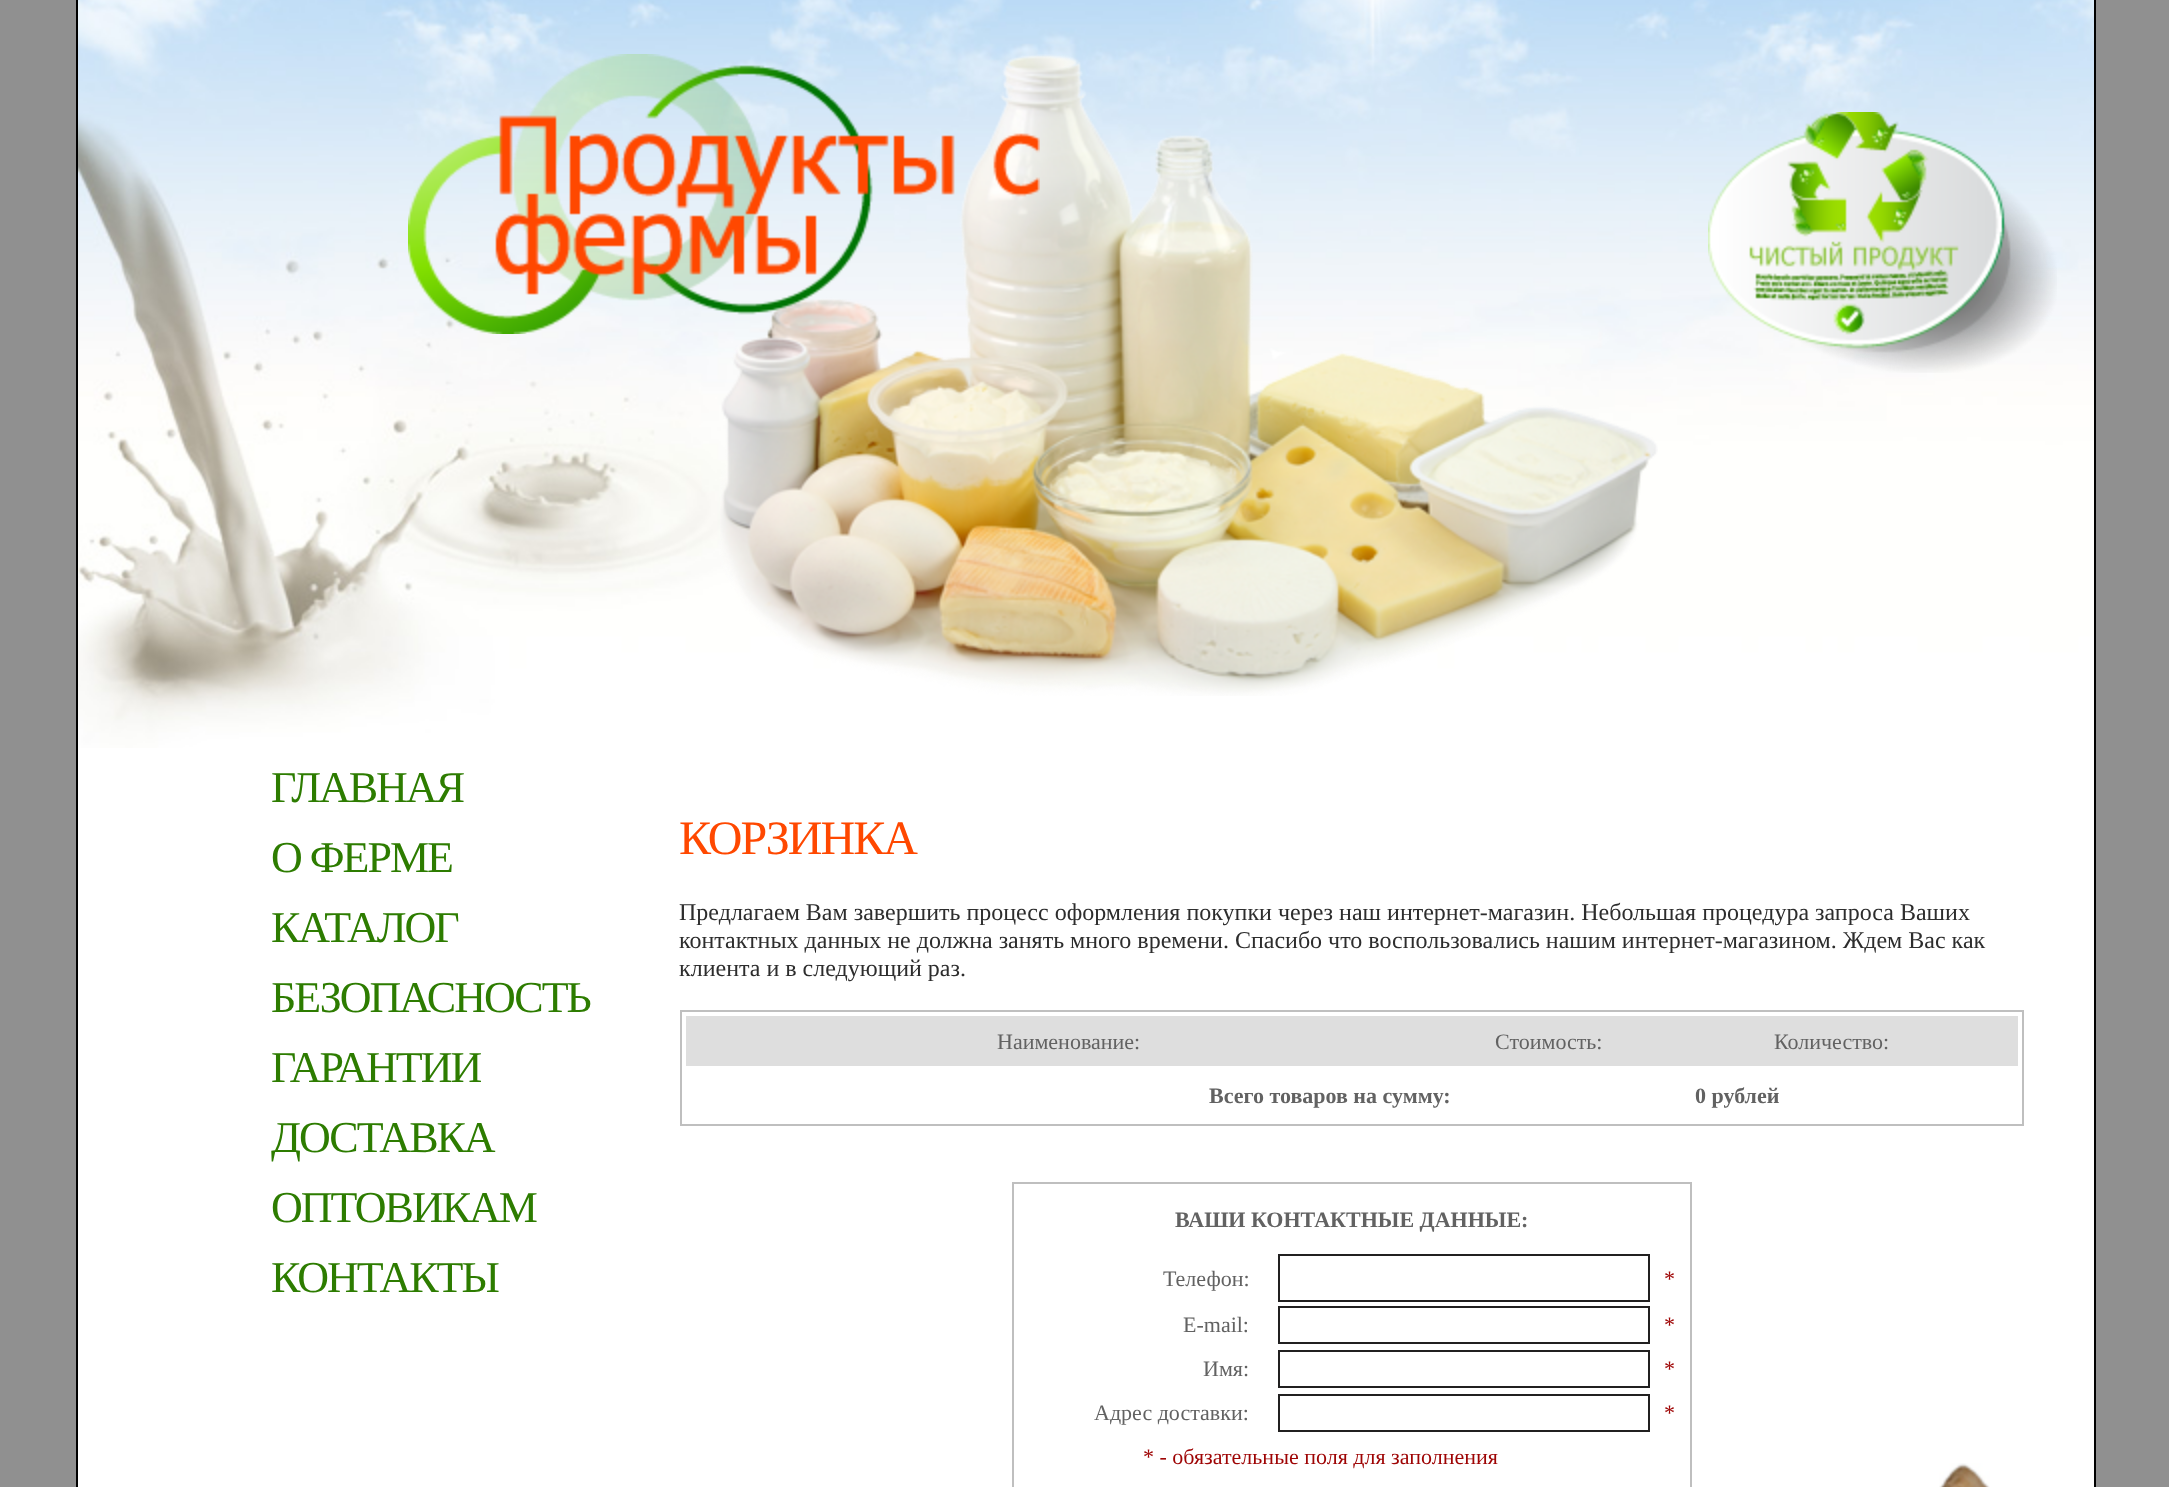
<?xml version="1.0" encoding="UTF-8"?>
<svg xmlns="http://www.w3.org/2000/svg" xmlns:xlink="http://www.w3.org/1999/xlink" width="2169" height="1487">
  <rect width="100%" height="100%" fill="#909090" />
  <rect x="78" y="748" width="2016" height="739" fill="#ffffff" />
  <image x="1939" y="1463" width="51" height="24" xlink:href="image1.png" />
  <rect x="2094" width="2" height="1487" fill="#000000" />
  <rect x="76" width="2" height="1487" fill="#000000" />
  <image x="78" y="0" width="2016" height="748" xlink:href="image2.png" />
  <image x="720" y="54" width="938" height="642" xlink:href="image4.png" />
  <image x="408" y="54" width="632" height="280" xlink:href="image3.png" />
  <image x="1708" y="112" width="349" height="261" xlink:href="image5.png" />
  <rect x="681" y="1011" width="1342" height="114" fill="none" stroke="#bfbfbf" stroke-width="2" />
  <rect x="686" y="1016" width="1332" height="50" fill="#dedede" />
  <rect x="1013" y="1183" width="678" height="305" fill="none" stroke="#bfbfbf" stroke-width="2" />
  <rect x="1279" y="1255" width="370" height="46" fill="none" stroke="#212020" stroke-width="2" />
  <rect x="1279" y="1307" width="370" height="36" fill="none" stroke="#212020" stroke-width="2" />
  <rect x="1279" y="1351" width="370" height="36" fill="none" stroke="#212020" stroke-width="2" />
  <rect x="1279" y="1395" width="370" height="36" fill="none" stroke="#212020" stroke-width="2" />
  <text x="271" y="802" style="font-family: Liberation Serif; font-size: 44px; letter-spacing: -2px; fill: #2d7c00">ГЛАВНАЯ</text>
  <text x="271" y="872" style="font-family: Liberation Serif; font-size: 44px; letter-spacing: -2px; fill: #2d7c00">О ФЕРМЕ</text>
  <text x="271" y="942" style="font-family: Liberation Serif; font-size: 44px; letter-spacing: -2px; fill: #2d7c00">КАТАЛОГ</text>
  <text x="271" y="1012" style="font-family: Liberation Serif; font-size: 44px; letter-spacing: -2px; fill: #2d7c00">БЕЗОПАСНОСТЬ</text>
  <text x="271" y="1082" style="font-family: Liberation Serif; font-size: 44px; letter-spacing: -2px; fill: #2d7c00">ГАРАНТИИ</text>
  <text x="271" y="1152" style="font-family: Liberation Serif; font-size: 44px; letter-spacing: -2px; fill: #2d7c00">ДОСТАВКА</text>
  <text x="271" y="1222" style="font-family: Liberation Serif; font-size: 44px; letter-spacing: -2px; fill: #2d7c00">ОПТОВИКАМ</text>
  <text x="271" y="1292" style="font-family: Liberation Serif; font-size: 44px; letter-spacing: -2px; fill: #2d7c00">КОНТАКТЫ</text>
  <text x="679" y="854" style="font-family: Liberation Serif; font-size: 48px; letter-spacing: -2px; fill: #ff4800">КОРЗИНКА</text>
  <text x="679" y="920" style="font-family: Liberation Serif; font-size: 24px; fill: #2d2d2d">Предлагаем Вам завершить процесс оформления покупки через наш интернет-магазин. Небольшая процедура запроса Ваших</text>
  <text x="679" y="948" style="font-family: Liberation Serif; font-size: 24px; fill: #2d2d2d">контактных данных не должна занять много времени. Спасибо что воспользовались нашим интернет-магазином. Ждем Вас как</text>
  <text x="679" y="976" style="font-family: Liberation Serif; font-size: 24px; fill: #2d2d2d">клиента и в следующий раз.</text>
  <text x="997" y="1049" style="font-family: Liberation Serif; font-size: 22px; fill: #626262">Наименование:</text>
  <text x="1495" y="1049" style="font-family: Liberation Serif; font-size: 22px; fill: #626262">Стоимость:</text>
  <text x="1774" y="1049" style="font-family: Liberation Serif; font-size: 22px; fill: #626262">Количество:</text>
  <text x="1209" y="1103" style="font-family: Liberation Serif; font-size: 22px; font-weight: bold; fill: #626262">Всего товаров на сумму:</text>
  <text x="1695" y="1103" style="font-family: Liberation Serif; font-size: 22px; font-weight: bold; fill: #626262">0 рублей</text>
  <text x="1175" y="1227" style="font-family: Liberation Serif; font-size: 22px; font-weight: bold; fill: #626262">ВАШИ КОНТАКТНЫЕ ДАННЫЕ:</text>
  <text x="1163" y="1286" style="font-family: Liberation Serif; font-size: 22px; fill: #626262">Телефон:</text>
  <text x="1664" y="1286" style="font-family: Liberation Serif; font-size: 22px; fill: #9e0404">*</text>
  <text x="1183" y="1332" style="font-family: Liberation Serif; font-size: 22px; fill: #626262">E-mail:</text>
  <text x="1664" y="1332" style="font-family: Liberation Serif; font-size: 22px; fill: #9e0404">*</text>
  <text x="1203" y="1376" style="font-family: Liberation Serif; font-size: 22px; fill: #626262">Имя:</text>
  <text x="1664" y="1376" style="font-family: Liberation Serif; font-size: 22px; fill: #9e0404">*</text>
  <text x="1094" y="1420" style="font-family: Liberation Serif; font-size: 22px; fill: #626262">Адрес доставки:</text>
  <text x="1664" y="1420" style="font-family: Liberation Serif; font-size: 22px; fill: #9e0404">*</text>
  <text x="1143" y="1464" style="font-family: Liberation Serif; font-size: 22px; fill: #9e0404">* - обязательные поля для заполнения</text>
</svg>
